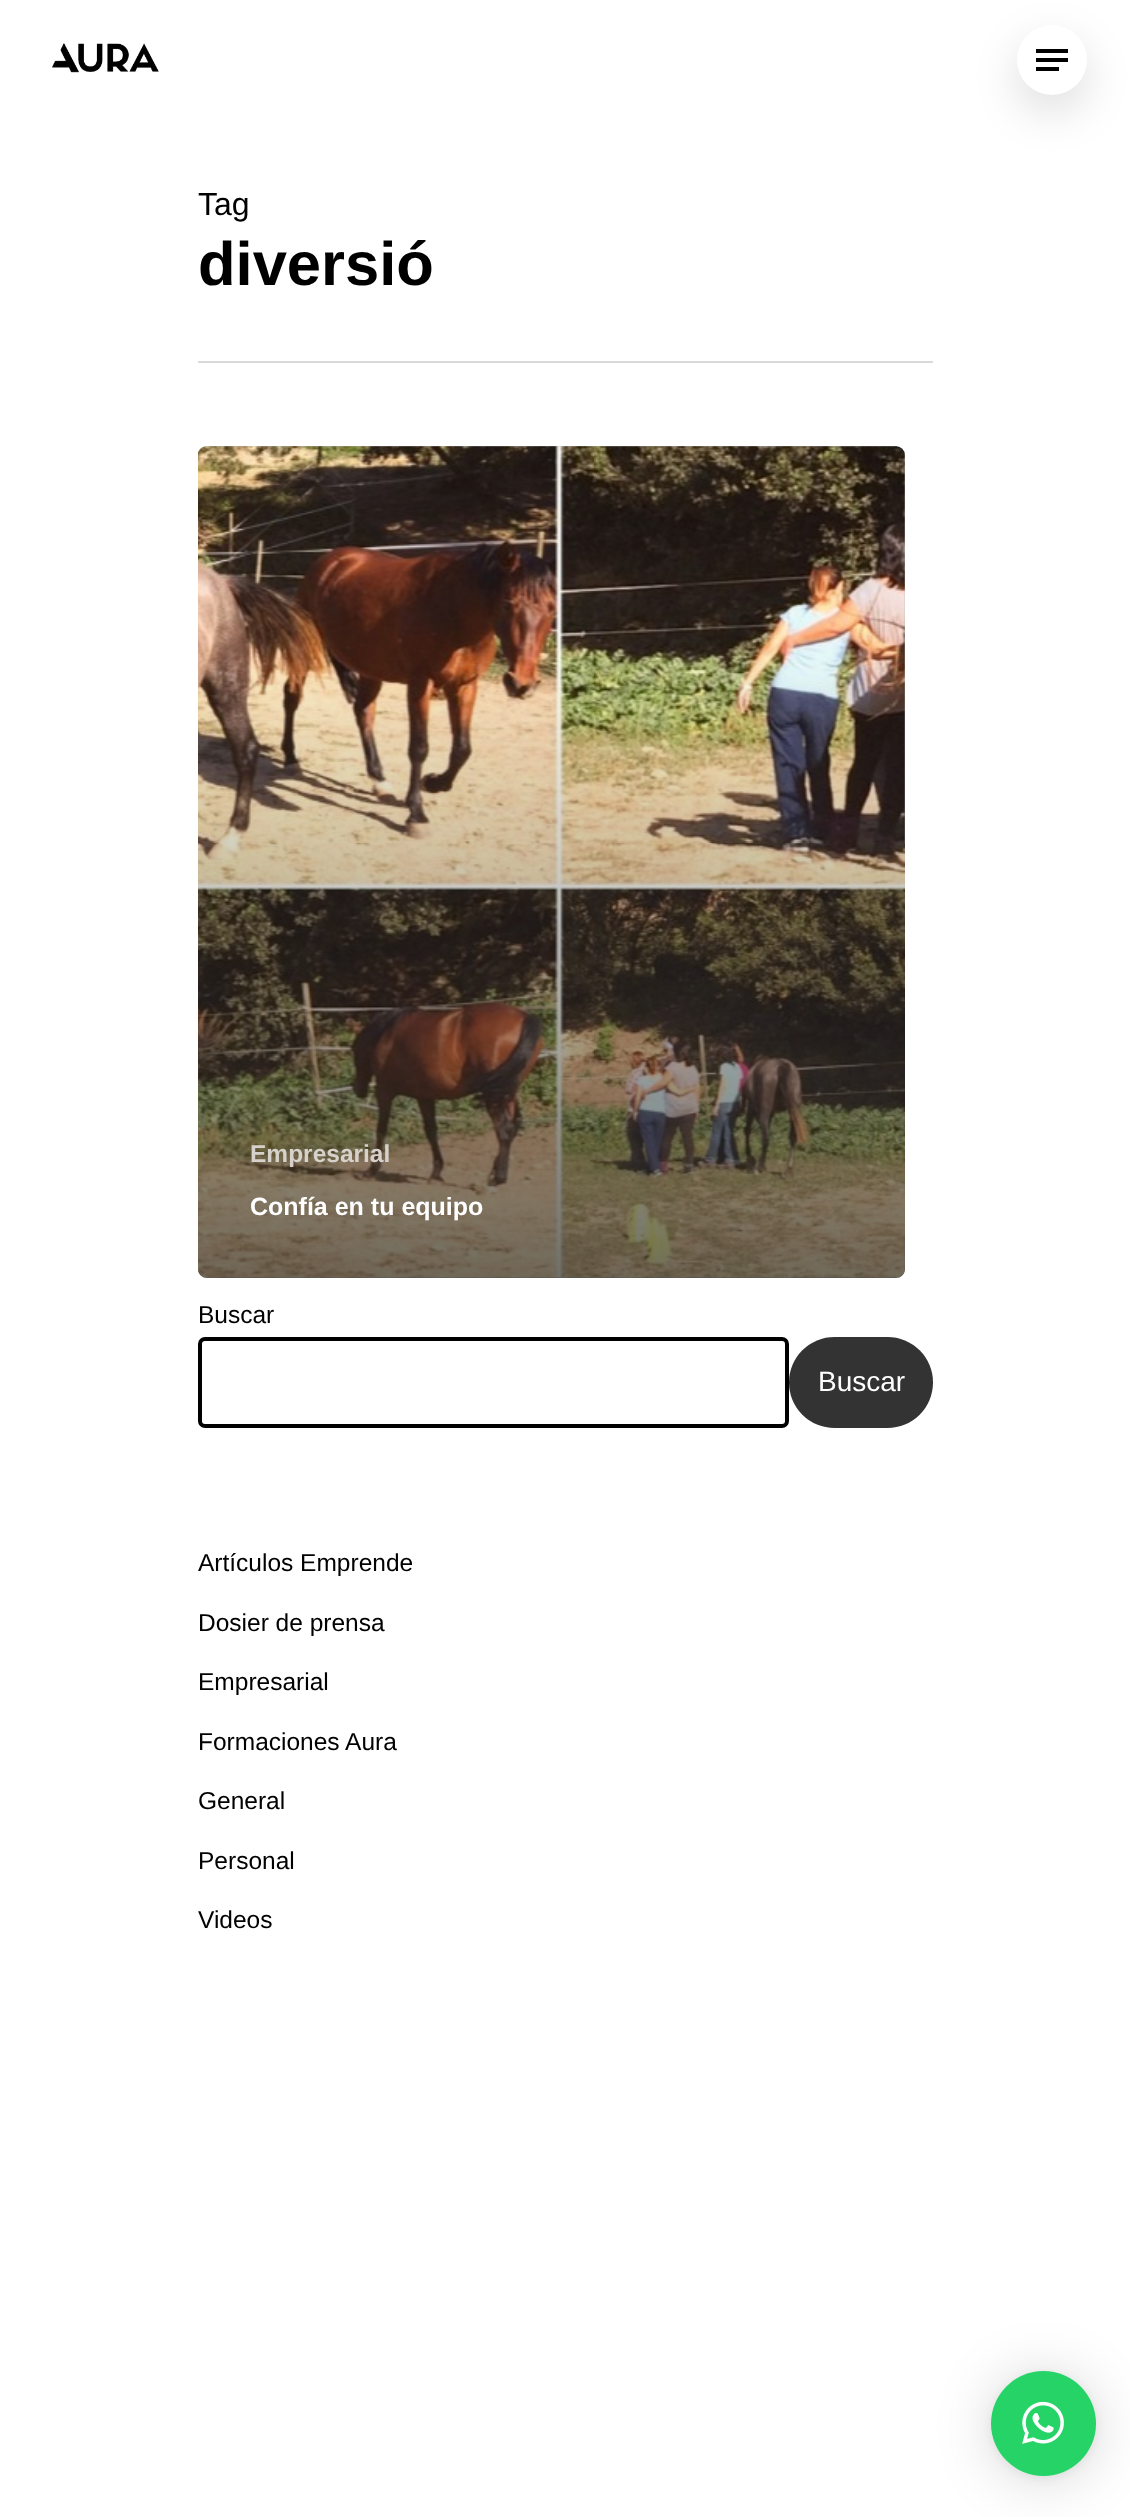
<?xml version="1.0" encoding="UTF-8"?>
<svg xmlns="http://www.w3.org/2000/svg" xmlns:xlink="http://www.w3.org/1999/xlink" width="1130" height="2517">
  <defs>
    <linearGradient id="g1" gradientUnits="userSpaceOnUse" x1="553" y1="655" x2="553" y2="1281"><stop offset="0" stop-color="#232323" stop-opacity="0" /><stop offset="1" stop-color="#232323" stop-opacity="0.65" /></linearGradient>
  </defs>
  <rect width="100%" height="100%" fill="#ffffff" />
  <image x="52" y="43" width="107" height="30" xlink:href="image1.png" />
  <rect x="1017" y="42" width="70" height="70" rx="35" fill="#000000" fill-opacity="0.13" filter="blur(22px)" />
  <circle cx="1052" cy="60" r="35" fill="#ffffff" />
  <rect x="1036" y="49" width="32" height="4" fill="#000000" />
  <rect x="1036" y="67" width="23" height="4" fill="#000000" />
  <rect x="1036" y="58" width="32" height="4" fill="#000000" />
  <rect x="198" y="361" width="735" height="2" fill="#d9d9d9" />
  <rect x="198" y="446" width="707" height="832" rx="9" fill="#b3b3b3" />
  <image x="198" y="446" width="707" height="832" xlink:href="image2.png" />
  <path d="M 198 655 h 707 v 614 c 0 5 -4 9 -9 9 h -689 c -5 0 -9 -4 -9 -9 z" fill="url(#g1)" />
  <rect x="200" y="1339" width="587" height="87" rx="5" fill="none" stroke="#000000" stroke-width="4" />
  <rect x="789" y="1337" width="144" height="91" rx="45.5" fill="#333333" />
  <rect x="991" y="2375" width="105" height="105" rx="52.5" fill="#000000" fill-opacity="0.16" filter="blur(28px)" />
  <rect x="991" y="2373" width="105" height="105" rx="52.5" fill="#000000" fill-opacity="0.06" filter="blur(5px)" />
  <circle cx="1043.5" cy="2423.5" r="52.5" fill="#25d366" />
  <image x="1022" y="2401" width="42" height="43" xlink:href="image3.png" />
  <text x="198" y="215" style="font-family: Liberation Sans; font-size: 32px; fill: #000000">Tag</text>
  <text x="198" y="285" style="font-family: Liberation Sans; font-size: 61.5px; font-weight: bold; fill: #000000">diversió</text>
  <text x="250" y="1162" style="font-family: Liberation Sans; font-size: 24.5px; font-weight: bold; fill: #d6d2cb">Empresarial</text>
  <text x="250" y="1215" style="font-family: Liberation Sans; font-size: 25px; font-weight: bold; fill: #ffffff">Confía en tu equipo</text>
  <text x="198" y="1323" style="font-family: Liberation Sans; font-size: 24.5px; fill: #000000">Buscar</text>
  <text x="818" y="1391" style="font-family: Liberation Sans; font-size: 28px; fill: #ffffff">Buscar</text>
  <text x="198" y="1571" style="font-family: Liberation Sans; font-size: 24.5px; fill: #000000">Artículos Emprende</text>
  <text x="198" y="1631" style="font-family: Liberation Sans; font-size: 24.5px; fill: #000000">Dosier de prensa</text>
  <text x="198" y="1690" style="font-family: Liberation Sans; font-size: 24.5px; fill: #000000">Empresarial</text>
  <text x="198" y="1750" style="font-family: Liberation Sans; font-size: 24.5px; fill: #000000">Formaciones Aura</text>
  <text x="198" y="1809" style="font-family: Liberation Sans; font-size: 24.5px; fill: #000000">General</text>
  <text x="198" y="1869" style="font-family: Liberation Sans; font-size: 24.5px; fill: #000000">Personal</text>
  <text x="198" y="1928" style="font-family: Liberation Sans; font-size: 24.5px; fill: #000000">Videos</text>
</svg>
